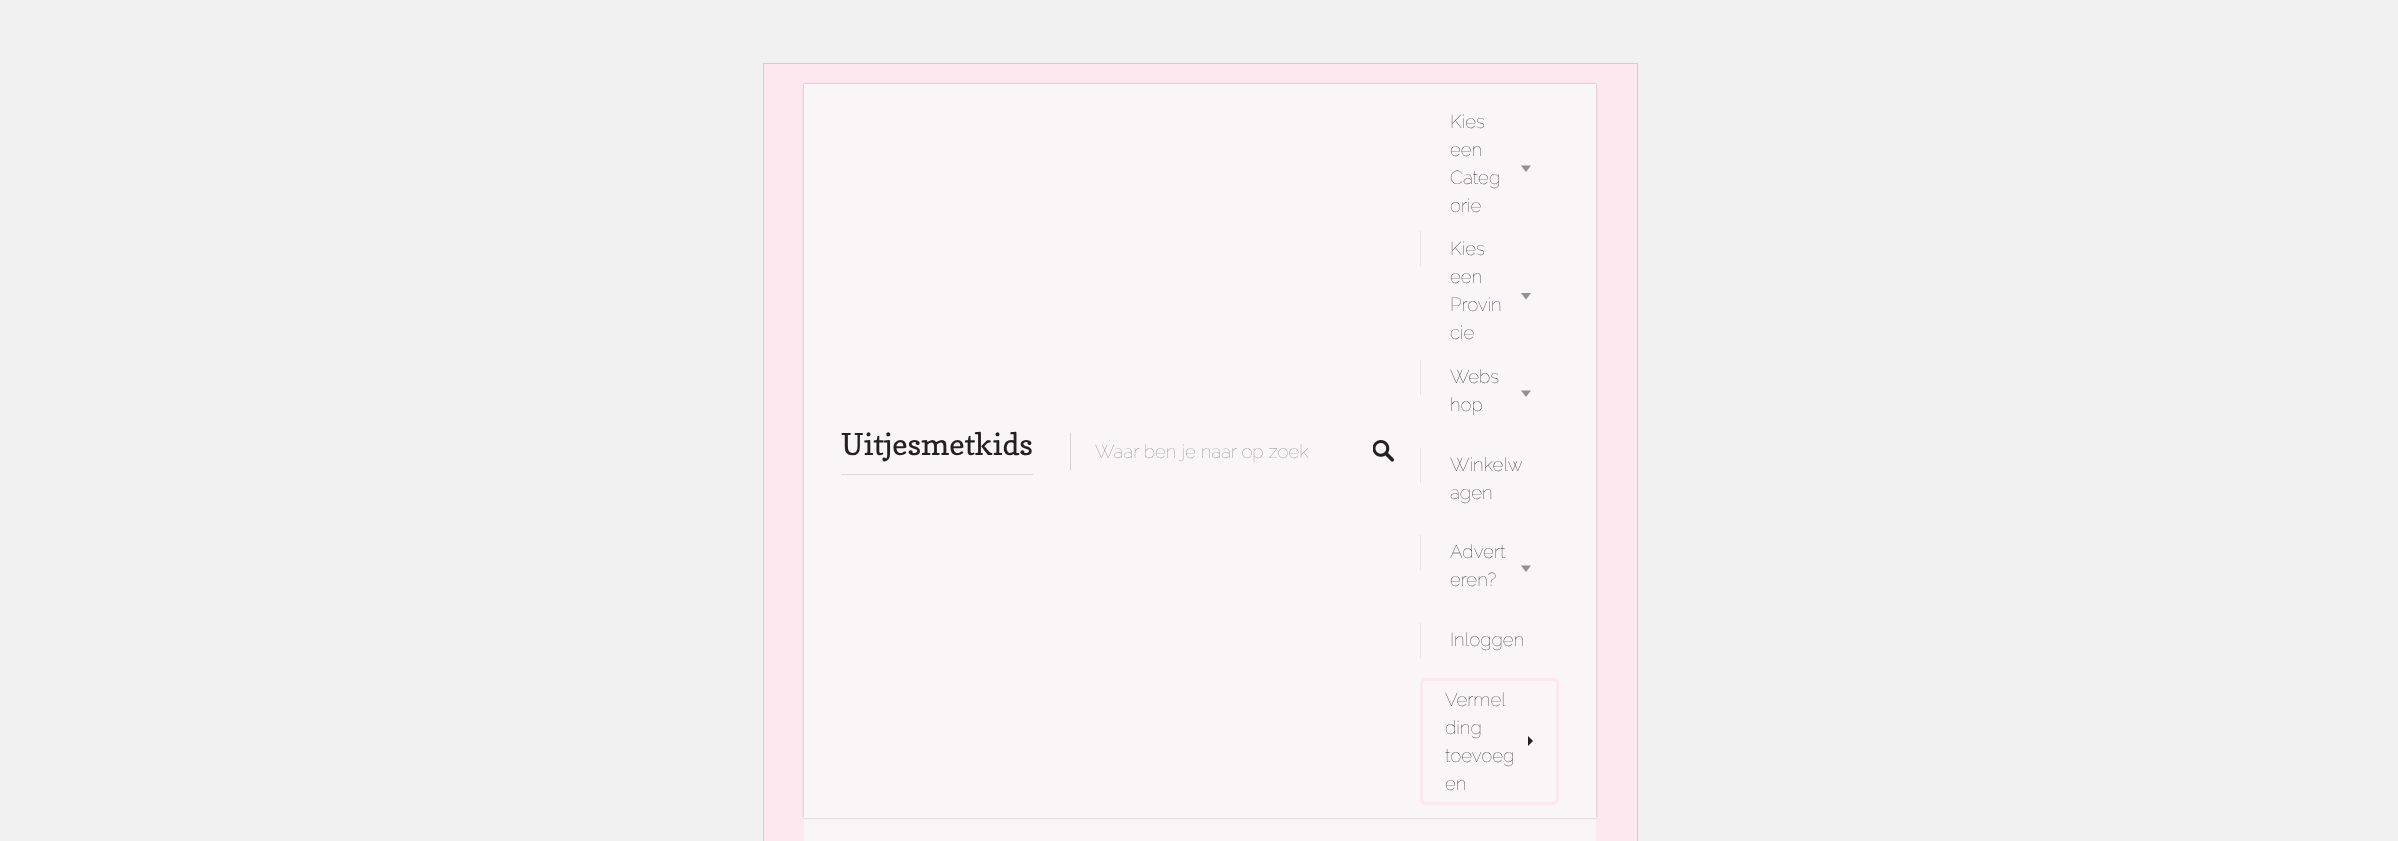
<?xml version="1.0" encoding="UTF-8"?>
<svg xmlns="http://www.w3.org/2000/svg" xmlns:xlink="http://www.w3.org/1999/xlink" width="2398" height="841">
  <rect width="100%" height="100%" fill="#f1f1f1" />
  <rect x="763.5" y="63.5" width="874" height="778" fill="#fce8ee" stroke="#ccd0d4" />
  <rect x="804" y="818" width="792" height="23" fill="#faf5f6" />
  <rect x="804" y="84" width="792" height="734" fill="#000000" fill-opacity="0.25" filter="blur(1px)" />
  <rect x="804" y="84" width="792" height="734" fill="#faf5f6" />
  <rect x="841" y="474" width="192" height="1" fill="#dadada" />
  <rect x="1070" y="433" width="1" height="37" fill="#d6d2d2" />
  <image x="1373" y="440" width="21" height="22" xlink:href="image1.png" />
  <path d="M 1521 165.5 h 10 l -5 6.5 z" fill="#919191" />
  <rect x="1420" y="231" width="1" height="35" fill="#e7e3e4" />
  <path d="M 1521 293 h 10 l -5 6.5 z" fill="#919191" />
  <rect x="1420" y="360" width="1" height="35" fill="#e7e3e4" />
  <path d="M 1521 390.5 h 10 l -5 6.5 z" fill="#919191" />
  <rect x="1420" y="448" width="1" height="35" fill="#e7e3e4" />
  <rect x="1420" y="535" width="1" height="35" fill="#e7e3e4" />
  <path d="M 1521 565.5 h 10 l -5 6.5 z" fill="#919191" />
  <rect x="1420" y="623" width="1" height="35" fill="#e7e3e4" />
  <rect x="1421.5" y="679.5" width="136" height="124" rx="4.5" fill="none" stroke="#fce8ee" stroke-width="3" />
  <path d="M 1528 746 v -10 l 5 5 z" fill="#241f20" />
  <text x="841" y="455" style="font-family: Copse; font-size: 30px; fill: #241f20">Uitjesmetkids</text>
  <text x="1095" y="458" style="font-family: Raleway; font-size: 18.75px; font-weight: 100; fill: #8f8a8b">Waar ben je naar op zoek</text>
  <text x="1450" y="128" style="font-family: Raleway; font-size: 18.75px; font-weight: 100; fill: #241f20">Kies</text>
  <text x="1450" y="156" style="font-family: Raleway; font-size: 18.75px; font-weight: 100; fill: #241f20">een</text>
  <text x="1450" y="184" style="font-family: Raleway; font-size: 18.75px; font-weight: 100; fill: #241f20">Categ</text>
  <text x="1450" y="212" style="font-family: Raleway; font-size: 18.75px; font-weight: 100; fill: #241f20">orie</text>
  <text x="1450" y="255" style="font-family: Raleway; font-size: 18.75px; font-weight: 100; fill: #241f20">Kies</text>
  <text x="1450" y="283" style="font-family: Raleway; font-size: 18.75px; font-weight: 100; fill: #241f20">een</text>
  <text x="1450" y="311" style="font-family: Raleway; font-size: 18.75px; font-weight: 100; fill: #241f20">Provin</text>
  <text x="1450" y="339" style="font-family: Raleway; font-size: 18.75px; font-weight: 100; fill: #241f20">cie</text>
  <text x="1450" y="383" style="font-family: Raleway; font-size: 18.75px; font-weight: 100; fill: #241f20">Webs</text>
  <text x="1450" y="411" style="font-family: Raleway; font-size: 18.75px; font-weight: 100; fill: #241f20">hop</text>
  <text x="1450" y="471" style="font-family: Raleway; font-size: 18.75px; font-weight: 100; fill: #241f20">Winkelw</text>
  <text x="1450" y="499" style="font-family: Raleway; font-size: 18.75px; font-weight: 100; fill: #241f20">agen</text>
  <text x="1450" y="558" style="font-family: Raleway; font-size: 18.75px; font-weight: 100; fill: #241f20">Advert</text>
  <text x="1450" y="586" style="font-family: Raleway; font-size: 18.75px; font-weight: 100; fill: #241f20">eren?</text>
  <text x="1450" y="646" style="font-family: Raleway; font-size: 18.75px; font-weight: 100; fill: #241f20">Inloggen</text>
  <text x="1445" y="706" style="font-family: Raleway; font-size: 18.75px; font-weight: 100; fill: #241f20">Vermel</text>
  <text x="1445" y="734" style="font-family: Raleway; font-size: 18.75px; font-weight: 100; fill: #241f20">ding</text>
  <text x="1445" y="762" style="font-family: Raleway; font-size: 18.75px; font-weight: 100; fill: #241f20">toevoeg</text>
  <text x="1445" y="790" style="font-family: Raleway; font-size: 18.75px; font-weight: 100; fill: #241f20">en</text>
</svg>
